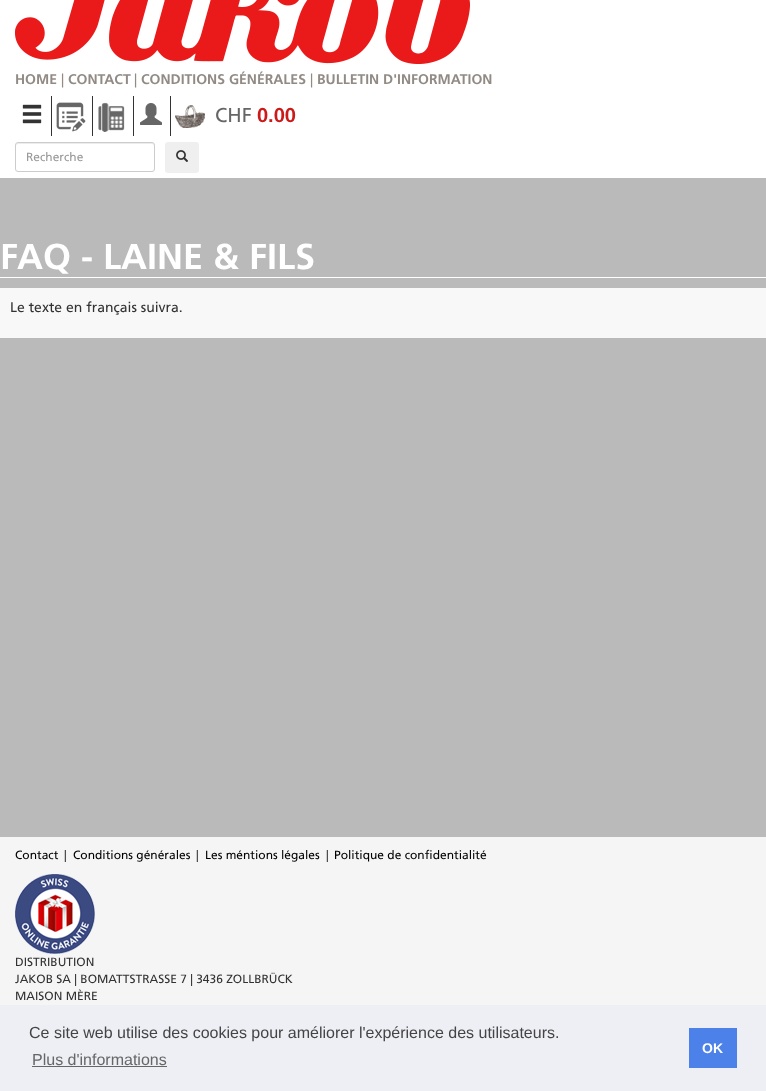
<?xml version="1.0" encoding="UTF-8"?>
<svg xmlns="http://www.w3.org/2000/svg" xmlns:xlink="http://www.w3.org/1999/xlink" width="766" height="1091">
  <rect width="100%" height="100%" fill="#ffffff" />
  <image x="15" y="0" width="455" height="64" xlink:href="image1.png" />
  <image x="22" y="104" width="20" height="20" xlink:href="image2.png" />
  <rect x="51" y="96" width="1" height="40" fill="#333333" />
  <image x="56" y="102" width="30" height="30" xlink:href="image3.png" />
  <rect x="92" y="96" width="1" height="40" fill="#333333" />
  <image x="98" y="102" width="27" height="30" xlink:href="image4.png" />
  <rect x="133" y="96" width="1" height="40" fill="#333333" />
  <image x="140" y="103" width="22" height="22" xlink:href="image5.png" />
  <rect x="170" y="96" width="1" height="40" fill="#333333" />
  <image x="175" y="105" width="30" height="23" xlink:href="image6.png" />
  <path d="M 18 144 h 134 c 1 0 2 1 2 2 c 0 -1 0 -3 -2 -3 h -134 c -2 0 -2 2 -2 3 c 0 -1 1 -2 2 -2 z" fill="#ececec" />
  <rect x="15.5" y="142.5" width="139" height="29" rx="2.5" fill="none" stroke="#cccccc" />
  <rect x="165" y="142" width="34" height="31" rx="3" fill="#efefef" />
  <image x="176" y="150" width="12" height="12" xlink:href="image7.png" />
  <rect y="178" width="766" height="659" fill="#bababa" />
  <rect y="277" width="766" height="1" fill="#ffffff" />
  <rect y="288" width="766" height="50" fill="#f8f8f8" />
  <rect y="837" width="766" height="168" fill="#f5f5f5" />
  <image x="15" y="874" width="80" height="80" xlink:href="image8.png" />
  <rect y="1005" width="766" height="86" fill="#edeff5" />
  <rect x="32" y="1066" width="135" height="1" fill="#666667" />
  <rect x="689" y="1028" width="48" height="40" fill="#4b81e8" />
  <text x="15" y="84" style="font-family: Frutiger; font-size: 14px; font-weight: bold; fill: #928b85">HOME</text>
  <text x="61" y="84" style="font-family: Frutiger; font-size: 14px; fill: #928b85">|</text>
  <text x="68" y="84" style="font-family: Frutiger; font-size: 14px; font-weight: bold; fill: #928b85">CONTACT</text>
  <text x="134" y="84" style="font-family: Frutiger; font-size: 14px; fill: #928b85">|</text>
  <text x="141" y="84" style="font-family: Frutiger; font-size: 14px; font-weight: bold; fill: #928b85">CONDITIONS GÉNÉRALES</text>
  <text x="310" y="84" style="font-family: Frutiger; font-size: 14px; fill: #928b85">|</text>
  <text x="317" y="84" style="font-family: Frutiger; font-size: 14px; font-weight: bold; fill: #928b85">BULLETIN D'INFORMATION</text>
  <text x="215" y="122" style="font-family: Frutiger; font-size: 20px; fill: #666666">CHF</text>
  <text x="257" y="122" style="font-family: Frutiger; font-size: 20px; font-weight: bold; fill: #cc1919">0.00</text>
  <text x="26" y="161" style="font-family: Frutiger; font-size: 12px; fill: #999999">Recherche</text>
  <text x="0" y="269" style="font-family: Frutiger; font-size: 36px; font-weight: bold; fill: #ffffff">FAQ - LAINE &amp; FILS</text>
  <text x="10" y="312" style="font-family: Frutiger; font-size: 14px; fill: #333333">Le texte en français suivra.</text>
  <text x="15" y="859" style="font-family: Frutiger; font-size: 12px; fill: #000000">Contact</text>
  <text x="64" y="859" style="font-family: Frutiger; font-size: 12px; fill: #333333">|</text>
  <text x="73" y="859" style="font-family: Frutiger; font-size: 12px; fill: #000000">Conditions générales</text>
  <text x="196" y="859" style="font-family: Frutiger; font-size: 12px; fill: #333333">|</text>
  <text x="205" y="859" style="font-family: Frutiger; font-size: 12px; fill: #000000">Les méntions légales</text>
  <text x="326" y="859" style="font-family: Frutiger; font-size: 12px; fill: #333333">|</text>
  <text x="334" y="859" style="font-family: Frutiger; font-size: 12px; fill: #000000">Politique de confidentialité</text>
  <text x="15" y="966" style="font-family: Frutiger; font-size: 12px; fill: #333333">DISTRIBUTION</text>
  <text x="15" y="983" style="font-family: Frutiger; font-size: 12px; fill: #333333">JAKOB SA | BOMATTSTRASSE 7 | 3436 ZOLLBRÜCK</text>
  <text x="15" y="1000" style="font-family: Frutiger; font-size: 12px; fill: #333333">MAISON MÈRE</text>
  <text x="29" y="1038" style="font-family: Liberation Sans; font-size: 16px; fill: #444444">Ce site web utilise des cookies pour améliorer l'expérience des utilisateurs.</text>
  <text x="32" y="1065" style="font-family: Liberation Sans; font-size: 16px; fill: #666666">Plus d'informations</text>
  <text x="702" y="1053" style="font-family: Liberation Sans; font-size: 14px; font-weight: bold; fill: #ffffff">OK</text>
</svg>
